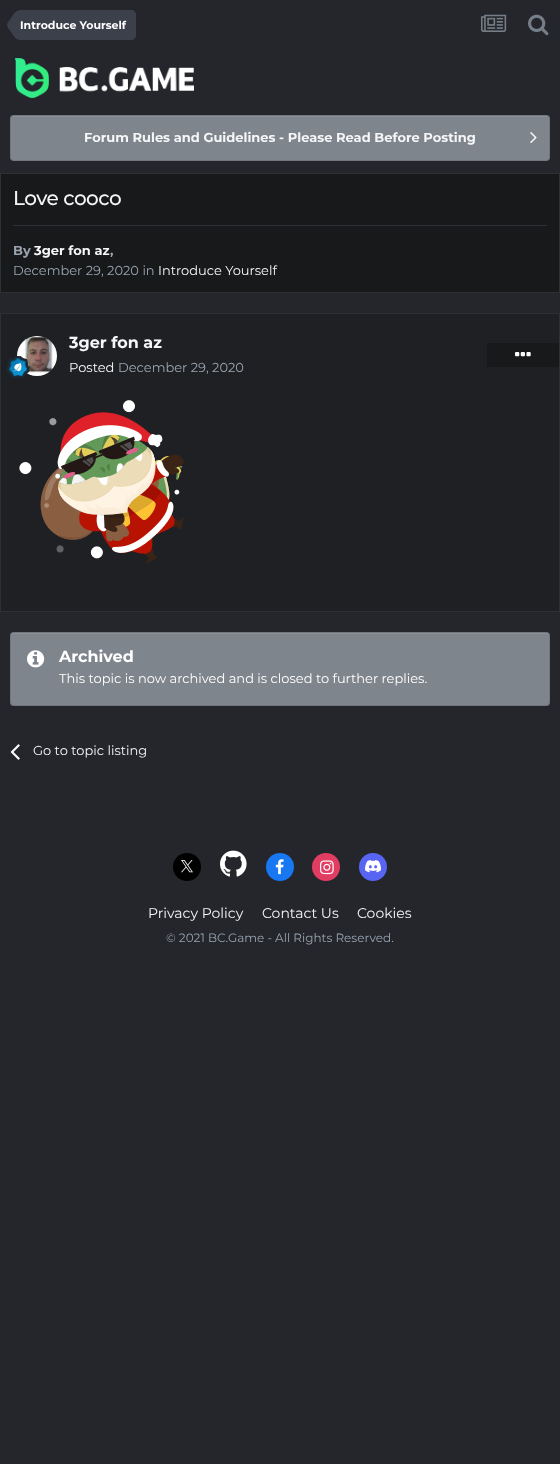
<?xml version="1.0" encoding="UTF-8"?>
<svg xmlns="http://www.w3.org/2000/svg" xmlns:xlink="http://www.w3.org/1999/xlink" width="560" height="1464">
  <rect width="100%" height="100%" fill="#24262b" />
  <path d="M 20 10 h 111 c 3 0 5 2 5 5 v 20 c 0 3 -2 5 -5 5 h -111 z" fill="#3c404a" />
  <path d="M 26 13.5 l 2 3 c 3 4.5 3 12.5 0 17 l -2 3 c -3.5 4.5 -8.5 4.5 -12 0 l -6.5 -9.5 c -0.5 -1 -0.5 -3 0 -4 l 6.5 -9.5 c 3.5 -4.5 8.5 -4.5 12 0 z" fill="#3c404a" />
  <image x="481" y="14" width="26" height="18" xlink:href="image1.png" />
  <image x="528" y="14" width="21" height="22" xlink:href="image2.png" />
  <image x="15" y="58" width="179" height="40" xlink:href="image3.png" />
  <rect x="10" y="115" width="540" height="46" rx="4" fill="#7f858d" />
  <path d="M 14 117 h 532 c 2 0 3 1 3 3 v -1 c 0 -2 -1 -3 -3 -3 h -532 c -2 0 -3 1 -3 3 v 1 c 0 -2 1 -3 3 -3 z" fill="#8c9198" />
  <rect x="10.5" y="115.5" width="539" height="45" rx="3.5" fill="none" stroke="#000000" stroke-opacity="0.1" />
  <image x="530" y="132" width="7" height="11" xlink:href="image4.png" />
  <rect x="0.5" y="173.5" width="559" height="119" fill="#17191b" stroke="#2d3035" />
  <rect x="13" y="225" width="534" height="1" fill="#2d3037" />
  <rect x="0.5" y="313.5" width="559" height="298" fill="#1e2024" stroke="#2d3035" />
  <image x="17" y="336" width="40" height="40" xlink:href="image5.png" />
  <image x="7" y="356" width="22" height="22" xlink:href="image6.png" />
  <rect x="487" y="343" width="72" height="24" fill="#17191b" />
  <image x="515" y="352" width="16" height="5" xlink:href="image7.png" />
  <image x="19" y="400" width="165" height="163" xlink:href="image8.png" />
  <rect x="10" y="632" width="540" height="74" rx="4" fill="#7f858d" />
  <path d="M 14 634 h 532 c 2 0 3 1 3 3 v -1 c 0 -2 -1 -3 -3 -3 h -532 c -2 0 -3 1 -3 3 v 1 c 0 -2 1 -3 3 -3 z" fill="#8c9198" />
  <rect x="10.5" y="632.5" width="539" height="73" rx="3.5" fill="none" stroke="#000000" stroke-opacity="0.1" />
  <image x="27" y="650" width="18" height="18" xlink:href="image9.png" />
  <image x="10" y="744" width="10" height="16" xlink:href="image10.png" />
  <circle cx="187" cy="867" r="14" fill="#000000" />
  <image x="181" y="860" width="12" height="13" xlink:href="image11.png" />
  <image x="220" y="850" width="27" height="27" xlink:href="image12.png" />
  <circle cx="280" cy="867" r="14" fill="#1778f2" />
  <image x="275" y="859" width="9" height="16" xlink:href="image13.png" />
  <circle cx="326" cy="867" r="14" fill="#e13d62" />
  <image x="320" y="860" width="14" height="15" xlink:href="image14.png" />
  <circle cx="373" cy="867" r="14" fill="#5865f2" />
  <image x="365" y="860" width="16" height="13" xlink:href="image15.png" />
  <text x="20" y="29" style="font-family: Montserrat; font-size: 11px; font-weight: bold; fill: #ffffff">Introduce Yourself</text>
  <text x="84" y="142" style="font-family: Montserrat; font-size: 13px; font-weight: bold; fill: #f5f6f7">Forum Rules and Guidelines - Please Read Before Posting</text>
  <text x="13" y="205" style="font-family: Montserrat; font-size: 20px; font-weight: 500; letter-spacing: -0.5px; fill: #f5f6f7">Love cooco</text>
  <text x="13" y="255" style="font-family: Montserrat; font-size: 13px; font-weight: bold; fill: #99a4b0">By</text>
  <text x="34" y="255" style="font-family: Montserrat; font-size: 13px; font-weight: bold; fill: #f5f6f7">3ger fon az</text>
  <text x="110" y="255" style="font-family: Montserrat; font-size: 13px; font-weight: bold; fill: #99a4b0">,</text>
  <text x="13" y="275" style="font-family: Montserrat; font-size: 13px; fill: #99a4b0">December 29, 2020 in</text>
  <text x="158" y="275" style="font-family: Montserrat; font-size: 13px; fill: #f5f6f7">Introduce Yourself</text>
  <text x="69" y="348" style="font-family: Montserrat; font-size: 16px; font-weight: bold; fill: #f5f6f7">3ger fon az</text>
  <text x="69" y="372" style="font-family: Montserrat; font-size: 13px; fill: #f5f6f7">Posted</text>
  <text x="118" y="372" style="font-family: Montserrat; font-size: 13px; fill: #99a4b0">December 29, 2020</text>
  <text x="59" y="662" style="font-family: Montserrat; font-size: 16px; font-weight: bold; fill: #ffffff">Archived</text>
  <text x="59" y="683" style="font-family: Montserrat; font-size: 13px; fill: #ffffff">This topic is now archived and is closed to further replies.</text>
  <text x="33" y="755" style="font-family: Montserrat; font-size: 13px; fill: #f5f6f7">Go to topic listing</text>
  <text x="148" y="918" style="font-family: Montserrat; font-size: 14px; fill: #f5f6f7">Privacy Policy</text>
  <text x="262" y="918" style="font-family: Montserrat; font-size: 14px; fill: #f5f6f7">Contact Us</text>
  <text x="357" y="918" style="font-family: Montserrat; font-size: 14px; fill: #f5f6f7">Cookies</text>
  <text x="166" y="942" style="font-family: Montserrat; font-size: 12px; fill: #99a4b0">© 2021 BC.Game - All Rights Reserved.</text>
</svg>
